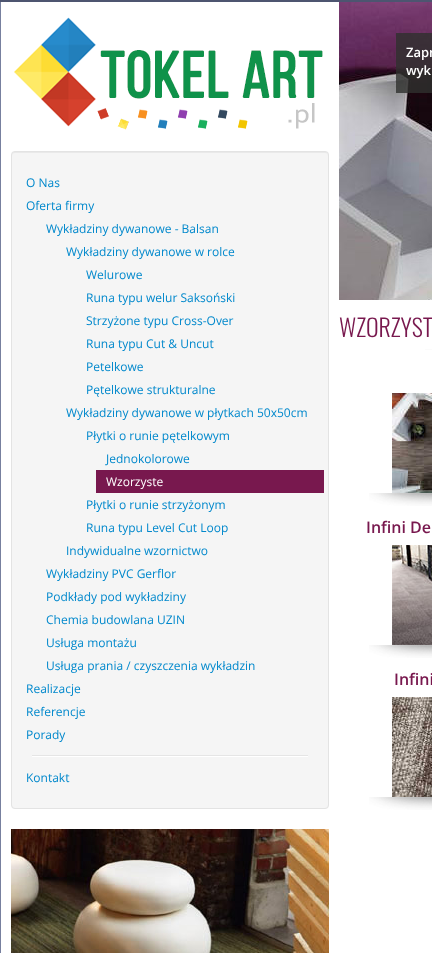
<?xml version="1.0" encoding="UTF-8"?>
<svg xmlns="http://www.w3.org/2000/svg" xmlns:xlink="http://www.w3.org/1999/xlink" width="432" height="953">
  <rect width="100%" height="100%" fill="#ffffff" />
  <rect width="1" height="953" fill="#77809f" />
  <rect width="432" height="2" fill="#4d5570" />
  <image x="14" y="17" width="309" height="113" xlink:href="image1.png" />
  <rect x="11" y="151" width="318" height="658" rx="4" fill="#f5f5f5" />
  <path d="M 15 153 h 310 c 2 0 3 1 3 3 l -1 -3 l -1 -1 h -311 c -2 0 -3 2 -3 4 c 0 -2 1 -3 3 -3 z" fill="#e9e9e9" />
  <rect x="11.5" y="151.5" width="317" height="657" rx="3.5" fill="none" stroke="#e3e3e3" />
  <rect x="96" y="470" width="228" height="23" fill="#78184e" />
  <rect x="32" y="755" width="276" height="1" fill="#e5e5e5" />
  <rect x="32" y="756" width="276" height="1" fill="#ffffff" />
  <image x="11" y="829" width="318" height="124" xlink:href="image2.png" />
  <image x="339" y="2" width="93" height="298" xlink:href="image3.png" />
  <rect x="396" y="33" width="36" height="60" fill="#2f312e" fill-opacity="0.8" />
  <image x="425" y="349" width="7" height="1" xlink:href="image4.png" />
  <image x="392" y="393" width="40" height="100" xlink:href="image5.png" />
  <image x="369" y="493" width="63" height="13" xlink:href="image6.png" />
  <image x="392" y="545" width="40" height="100" xlink:href="image7.png" />
  <image x="369" y="645" width="63" height="13" xlink:href="image6.png" />
  <image x="392" y="697" width="40" height="100" xlink:href="image8.png" />
  <image x="369" y="797" width="63" height="13" xlink:href="image6.png" />
  <text x="26" y="187" style="font-family: Open Sans; font-size: 12px; fill: #0088cc">O Nas</text>
  <text x="26" y="210" style="font-family: Open Sans; font-size: 12px; fill: #0088cc">Oferta firmy</text>
  <text x="46" y="233" style="font-family: Open Sans; font-size: 12px; fill: #0088cc">Wykładziny dywanowe - Balsan</text>
  <text x="66" y="256" style="font-family: Open Sans; font-size: 12px; fill: #0088cc">Wykładziny dywanowe w rolce</text>
  <text x="86" y="279" style="font-family: Open Sans; font-size: 12px; fill: #0088cc">Welurowe</text>
  <text x="86" y="302" style="font-family: Open Sans; font-size: 12px; fill: #0088cc">Runa typu welur Saksoński</text>
  <text x="86" y="325" style="font-family: Open Sans; font-size: 12px; fill: #0088cc">Strzyżone typu Cross-Over</text>
  <text x="86" y="348" style="font-family: Open Sans; font-size: 12px; fill: #0088cc">Runa typu Cut &amp; Uncut</text>
  <text x="86" y="371" style="font-family: Open Sans; font-size: 12px; fill: #0088cc">Petelkowe</text>
  <text x="86" y="394" style="font-family: Open Sans; font-size: 12px; fill: #0088cc">Pętelkowe strukturalne</text>
  <text x="66" y="417" style="font-family: Open Sans; font-size: 12px; fill: #0088cc">Wykładziny dywanowe w płytkach 50x50cm</text>
  <text x="86" y="440" style="font-family: Open Sans; font-size: 12px; fill: #0088cc">Płytki o runie pętelkowym</text>
  <text x="106" y="463" style="font-family: Open Sans; font-size: 12px; fill: #0088cc">Jednokolorowe</text>
  <text x="106" y="486" style="font-family: Open Sans; font-size: 12px; fill: #ffffff">Wzorzyste</text>
  <text x="86" y="509" style="font-family: Open Sans; font-size: 12px; fill: #0088cc">Płytki o runie strzyżonym</text>
  <text x="86" y="532" style="font-family: Open Sans; font-size: 12px; fill: #0088cc">Runa typu Level Cut Loop</text>
  <text x="66" y="555" style="font-family: Open Sans; font-size: 12px; fill: #0088cc">Indywidualne wzornictwo</text>
  <text x="46" y="578" style="font-family: Open Sans; font-size: 12px; fill: #0088cc">Wykładziny PVC Gerflor</text>
  <text x="46" y="601" style="font-family: Open Sans; font-size: 12px; fill: #0088cc">Podkłady pod wykładziny</text>
  <text x="46" y="624" style="font-family: Open Sans; font-size: 12px; fill: #0088cc">Chemia budowlana UZIN</text>
  <text x="46" y="647" style="font-family: Open Sans; font-size: 12px; fill: #0088cc">Usługa montażu</text>
  <text x="46" y="670" style="font-family: Open Sans; font-size: 12px; fill: #0088cc">Usługa prania / czyszczenia wykładzin</text>
  <text x="26" y="693" style="font-family: Open Sans; font-size: 12px; fill: #0088cc">Realizacje</text>
  <text x="26" y="716" style="font-family: Open Sans; font-size: 12px; fill: #0088cc">Referencje</text>
  <text x="26" y="739" style="font-family: Open Sans; font-size: 12px; fill: #0088cc">Porady</text>
  <text x="26" y="782" style="font-family: Open Sans; font-size: 12px; fill: #0088cc">Kontakt</text>
  <text x="406" y="57" style="font-family: Open Sans; font-size: 13px; font-weight: 600; fill: #ffffff">Zapr</text>
  <text x="406" y="75" style="font-family: Open Sans; font-size: 13px; font-weight: 600; fill: #ffffff">wyk</text>
  <text x="339" y="337" style="font-family: Oswald; font-size: 24px; font-weight: 300; fill: #78184e">WZORZYST</text>
  <text x="366" y="533" style="font-family: Open Sans; font-size: 16px; font-weight: 600; fill: #78184e">Infini De</text>
  <text x="394" y="685" style="font-family: Open Sans; font-size: 16px; font-weight: 600; fill: #78184e">Infini</text>
</svg>
